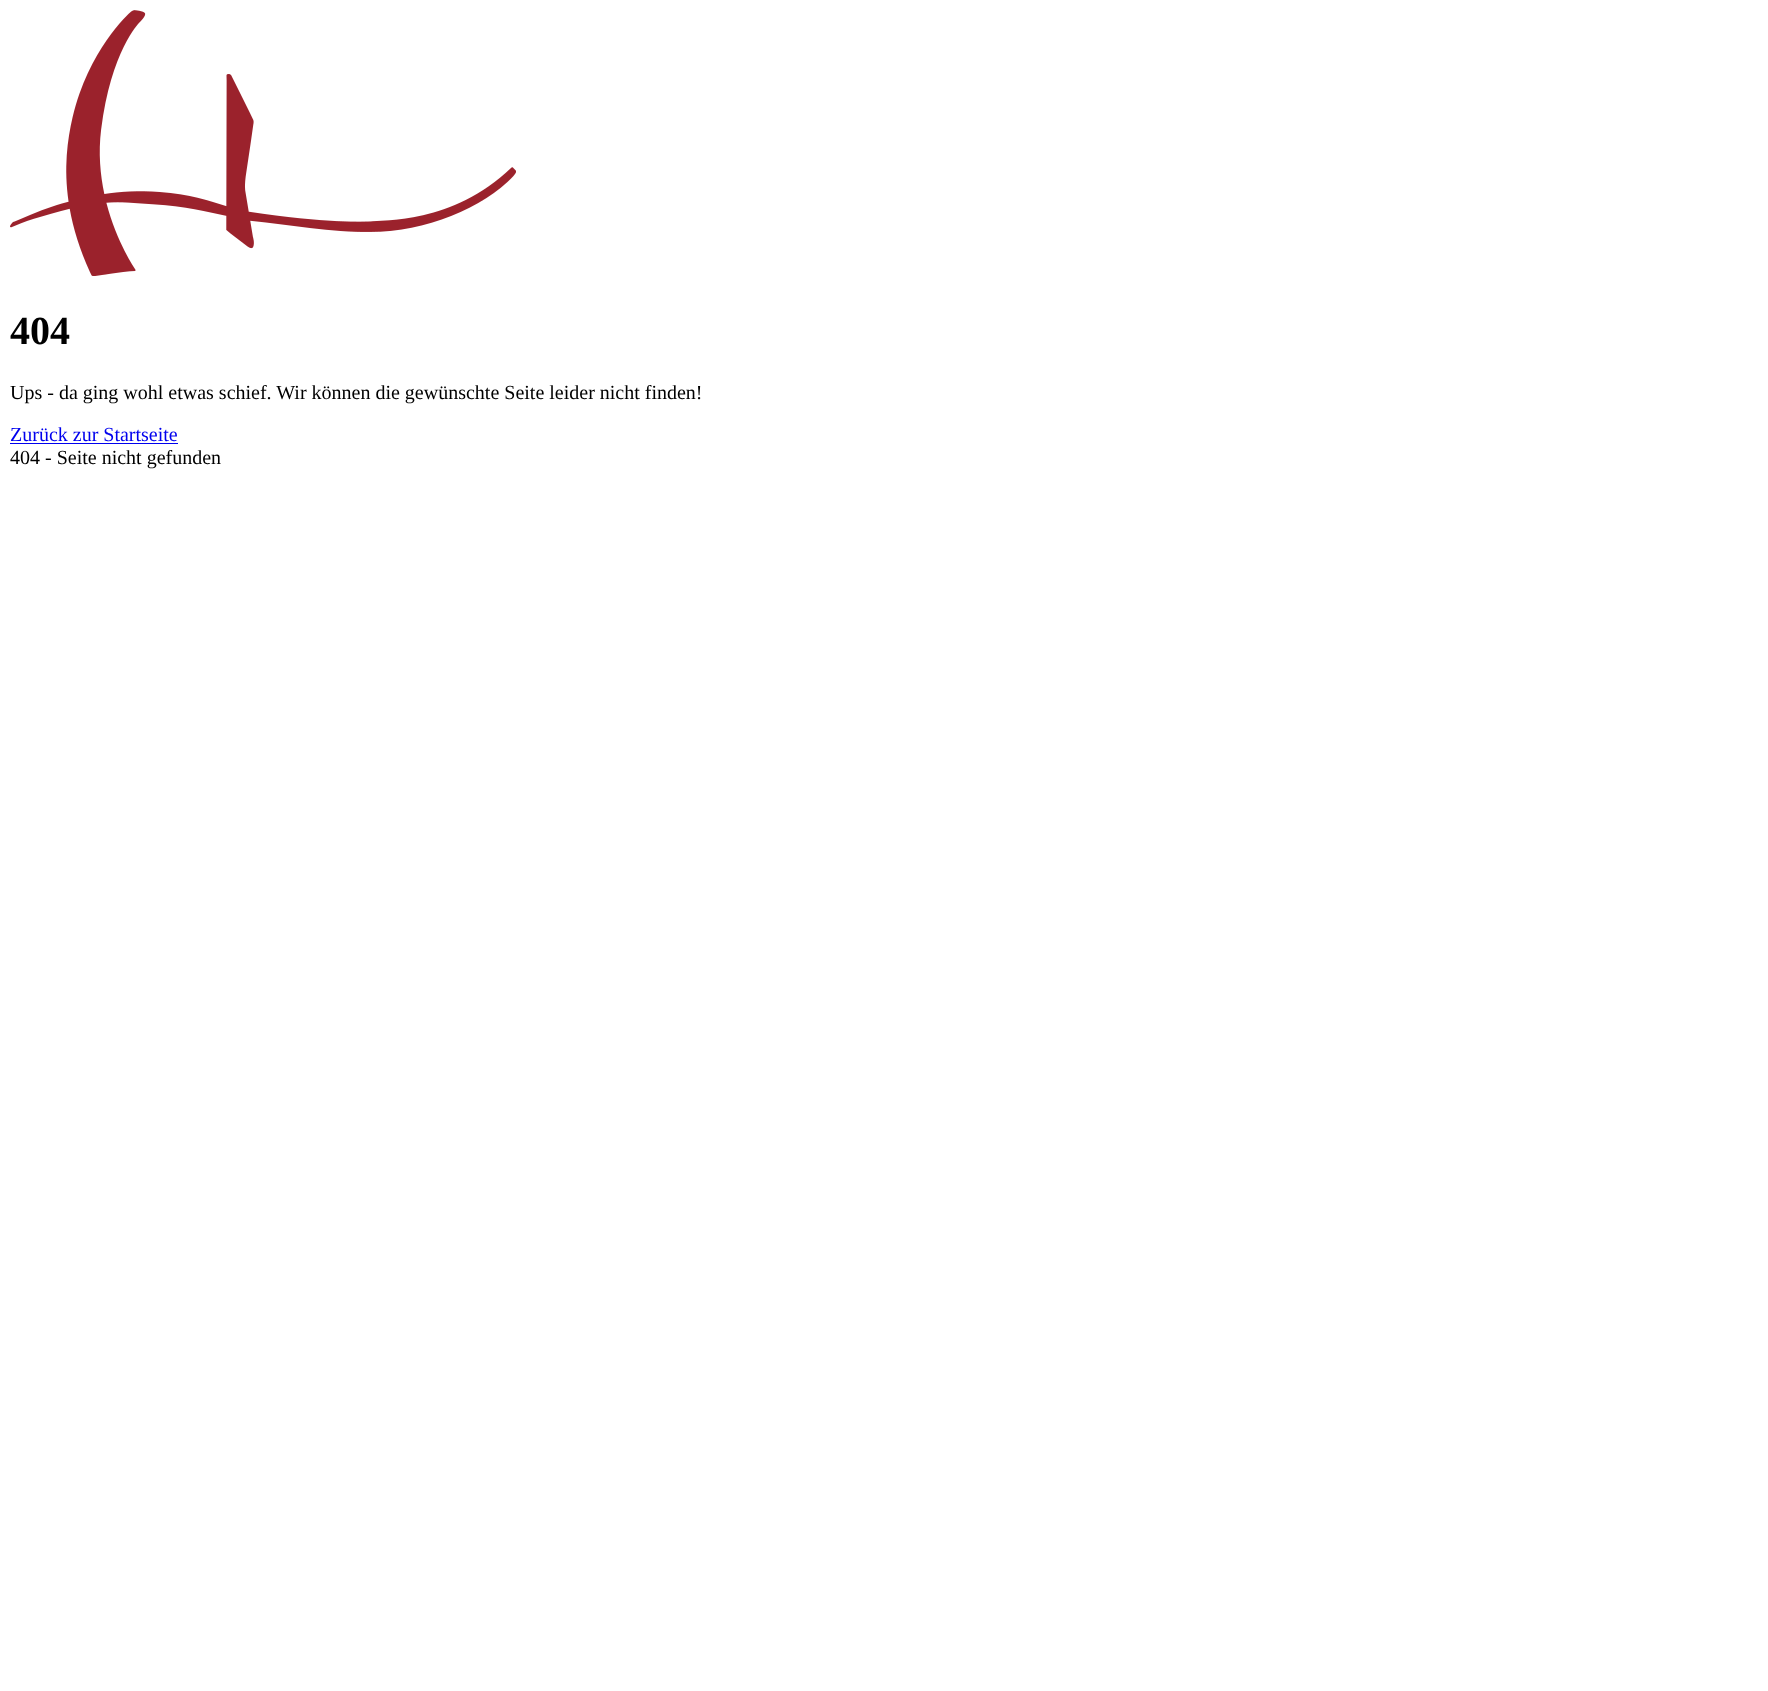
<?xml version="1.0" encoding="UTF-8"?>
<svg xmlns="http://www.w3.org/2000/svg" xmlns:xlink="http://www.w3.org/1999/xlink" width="1768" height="1691">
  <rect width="100%" height="100%" fill="#ffffff" />
  <image x="10" y="10" width="506" height="266" xlink:href="image1.png" />
  <rect x="10" y="443" width="168" height="1" fill="#0000ee" />
  <text x="10" y="344" style="font-family: Liberation Serif; font-size: 40px; font-weight: bold; fill: #000000">404</text>
  <text x="10" y="399" style="font-family: Liberation Serif; font-size: 20px; fill: #000000">Ups - da ging wohl etwas schief. Wir können die gewünschte Seite leider nicht finden!</text>
  <text x="10" y="441" style="font-family: Liberation Serif; font-size: 20px; fill: #0000ee">Zurück zur Startseite</text>
  <text x="10" y="464" style="font-family: Liberation Serif; font-size: 20px; fill: #000000">404 - Seite nicht gefunden</text>
</svg>
